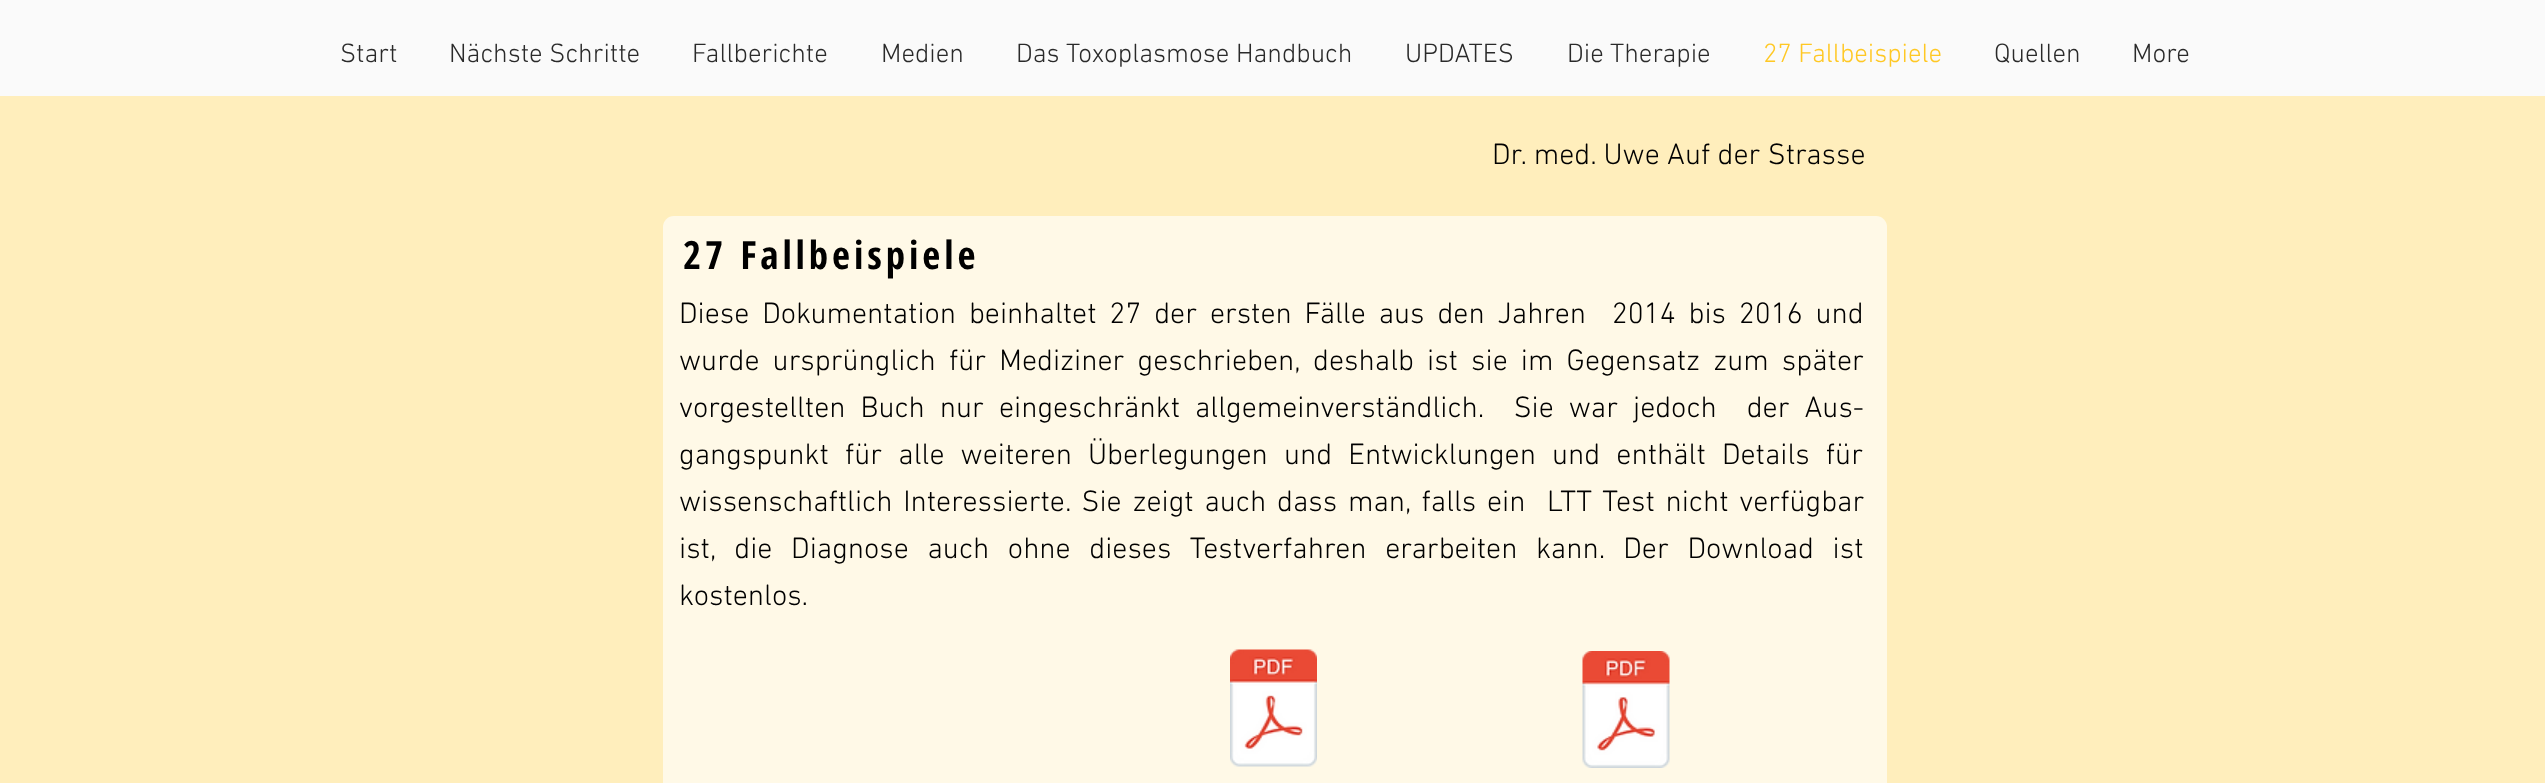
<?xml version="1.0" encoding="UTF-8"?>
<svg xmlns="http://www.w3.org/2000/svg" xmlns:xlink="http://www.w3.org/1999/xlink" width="2545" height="783">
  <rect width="100%" height="100%" fill="#ffeebc" />
  <rect width="2545" height="96" fill="#fafafa" />
  <rect x="663" y="216" width="1224" height="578" rx="11" fill="#fff9e7" />
  <image x="1230" y="649" width="87" height="118" xlink:href="image1.png" />
  <image x="1582" y="651" width="88" height="117" xlink:href="image2.png" />
  <text x="340" y="62" style="font-family: 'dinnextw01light'; font-size: 27px; font-weight: 300; fill: #2a2a2a">Start</text>
  <text x="449" y="62" style="font-family: 'dinnextw01light'; font-size: 27px; font-weight: 300; fill: #2a2a2a">Nächste Schritte</text>
  <text x="692" y="62" style="font-family: 'dinnextw01light'; font-size: 27px; font-weight: 300; fill: #2a2a2a">Fallberichte</text>
  <text x="881" y="62" style="font-family: 'dinnextw01light'; font-size: 27px; font-weight: 300; fill: #2a2a2a">Medien</text>
  <text x="1016" y="62" style="font-family: 'dinnextw01light'; font-size: 27px; font-weight: 300; fill: #2a2a2a">Das Toxoplasmose Handbuch</text>
  <text x="1405" y="62" style="font-family: 'dinnextw01light'; font-size: 27px; font-weight: 300; fill: #2a2a2a">UPDATES</text>
  <text x="1567" y="62" style="font-family: 'dinnextw01light'; font-size: 27px; font-weight: 300; fill: #2a2a2a">Die Therapie</text>
  <text x="1763" y="62" style="font-family: 'dinnextw01light'; font-size: 27px; font-weight: 300; fill: #ffc824">27 Fallbeispiele</text>
  <text x="1994" y="62" style="font-family: 'dinnextw01light'; font-size: 27px; font-weight: 300; fill: #2a2a2a">Quellen</text>
  <text x="2132" y="62" style="font-family: 'dinnextw01light'; font-size: 27px; font-weight: 300; fill: #2a2a2a">More</text>
  <text x="1492" y="164" style="font-family: 'dinnextw01light'; font-size: 30px; font-weight: 300; fill: #000000">Dr. med. Uwe Auf der Strasse</text>
  <text x="683" y="269" style="font-family: Open Sans Condensed; font-size: 39px; font-weight: bold; letter-spacing: 3.9px; fill: #000000">27 Fallbeispiele</text>
  <text x="679" y="323" word-spacing="5.5" style="font-family: 'dinnextw01light'; font-size: 30px; font-weight: 300; fill: #000000" xml:space="preserve">Diese Dokumentation beinhaltet 27 der ersten Fälle aus den Jahren  2014 bis 2016 und</text>
  <text x="679" y="370" word-spacing="5.75" style="font-family: 'dinnextw01light'; font-size: 30px; font-weight: 300; fill: #000000">wurde ursprünglich für Mediziner geschrieben, deshalb ist sie im Gegensatz zum später</text>
  <text x="679" y="417" word-spacing="7.6" style="font-family: 'dinnextw01light'; font-size: 30px; font-weight: 300; fill: #000000" xml:space="preserve">vorgestellten Buch nur eingeschränkt allgemeinverständlich.  Sie war jedoch  der Aus-</text>
  <text x="679" y="464" word-spacing="8.75" style="font-family: 'dinnextw01light'; font-size: 30px; font-weight: 300; fill: #000000">gangspunkt für alle weiteren Überlegungen und Entwicklungen und enthält Details für</text>
  <text x="679" y="511" word-spacing="3.4" style="font-family: 'dinnextw01light'; font-size: 30px; font-weight: 300; fill: #000000" xml:space="preserve">wissenschaftlich Interessierte. Sie zeigt auch dass man, falls ein  LTT Test nicht verfügbar</text>
  <text x="679" y="558" word-spacing="11.25" style="font-family: 'dinnextw01light'; font-size: 30px; font-weight: 300; fill: #000000">ist, die Diagnose auch ohne dieses Testverfahren erarbeiten kann. Der Download ist</text>
  <text x="679" y="605" style="font-family: 'dinnextw01light'; font-size: 30px; font-weight: 300; fill: #000000">kostenlos.</text>
</svg>
